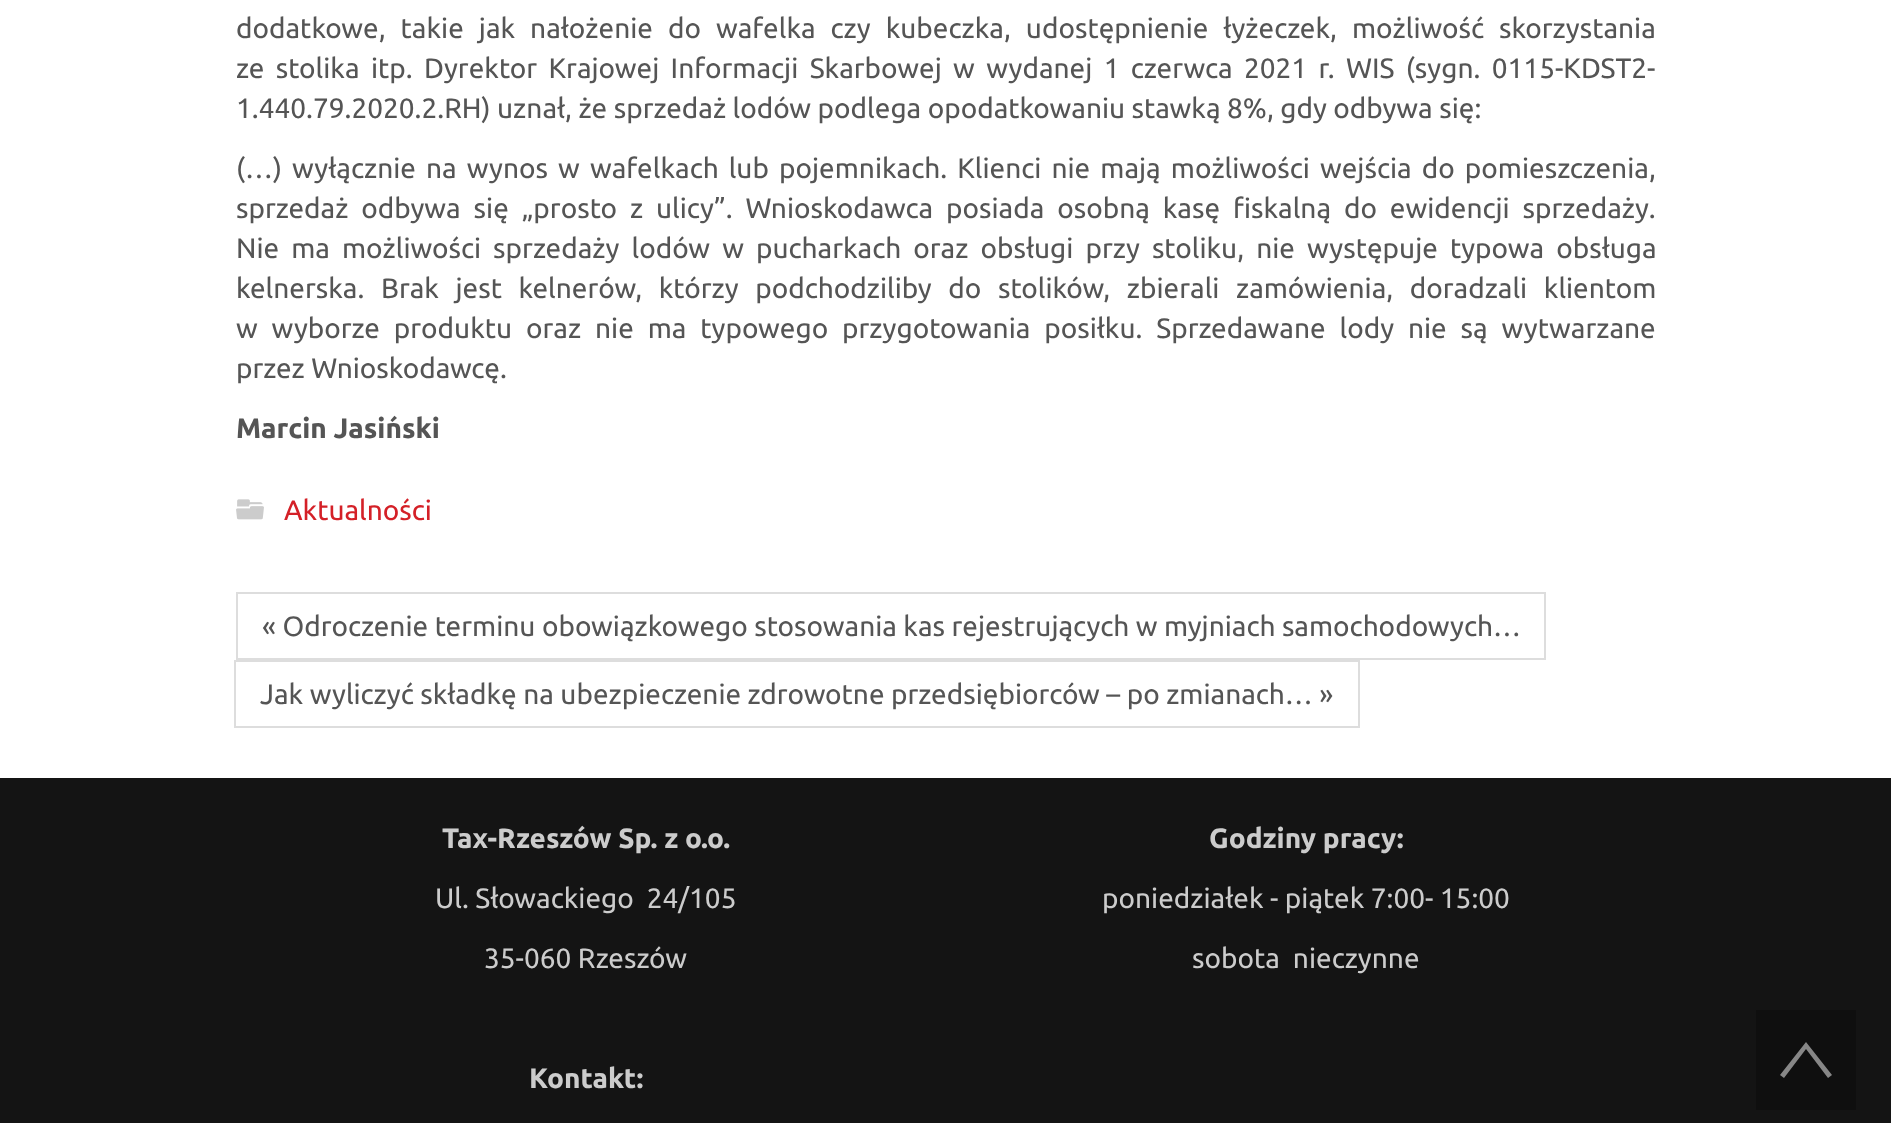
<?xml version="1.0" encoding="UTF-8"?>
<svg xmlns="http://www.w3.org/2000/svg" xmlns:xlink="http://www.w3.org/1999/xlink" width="1891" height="1123">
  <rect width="100%" height="100%" fill="#ffffff" />
  <image x="236" y="499" width="28" height="21" xlink:href="image1.png" />
  <rect x="237" y="593" width="1308" height="66" fill="none" stroke="#dddddd" stroke-width="2" />
  <rect x="235" y="661" width="1124" height="66" fill="none" stroke="#dddddd" stroke-width="2" />
  <rect y="778" width="1891" height="345" fill="#141414" />
  <rect x="1756" y="1010" width="100" height="100" fill="#0f0f0f" />
  <path d="M 1806 1042 l 26 33 l -4 3 l -22 -29 l -22 29 l -4 -3 z" fill="#878787" />
  <text x="236" y="38" word-spacing="8.5" style="font-family: Ubuntu; font-size: 28px; fill: #555555">dodatkowe, takie jak nałożenie do wafelka czy kubeczka, udostępnienie łyżeczek, możliwość skorzystania</text>
  <text x="236" y="78" word-spacing="4.9" style="font-family: Ubuntu; font-size: 28px; fill: #555555">ze stolika itp. Dyrektor Krajowej Informacji Skarbowej w wydanej 1 czerwca 2021 r. WIS (sygn. 0115-KDST2-</text>
  <text x="236" y="118" style="font-family: Ubuntu; font-size: 28px; fill: #555555">1.440.79.2020.2.RH) uznał, że sprzedaż lodów podlega opodatkowaniu stawką 8%, gdy odbywa się:</text>
  <text x="236" y="178" word-spacing="3.6" style="font-family: Ubuntu; font-size: 28px; fill: #555555">(…) wyłącznie na wynos w wafelkach lub pojemnikach. Klienci nie mają możliwości wejścia do pomieszczenia,</text>
  <text x="236" y="218" word-spacing="6.4" style="font-family: Ubuntu; font-size: 28px; fill: #555555">sprzedaż odbywa się „prosto z ulicy”. Wnioskodawca posiada osobną kasę fiskalną do ewidencji sprzedaży.</text>
  <text x="236" y="258" word-spacing="5.6" style="font-family: Ubuntu; font-size: 28px; fill: #555555">Nie ma możliwości sprzedaży lodów w pucharkach oraz obsługi przy stoliku, nie występuje typowa obsługa</text>
  <text x="236" y="298" word-spacing="10.1" style="font-family: Ubuntu; font-size: 28px; fill: #555555">kelnerska. Brak jest kelnerów, którzy podchodziliby do stolików, zbierali zamówienia, doradzali klientom</text>
  <text x="236" y="338" word-spacing="7.4" style="font-family: Ubuntu; font-size: 28px; fill: #555555">w wyborze produktu oraz nie ma typowego przygotowania posiłku. Sprzedawane lody nie są wytwarzane</text>
  <text x="236" y="378" style="font-family: Ubuntu; font-size: 28px; fill: #555555">przez Wnioskodawcę.</text>
  <text x="236" y="438" style="font-family: Ubuntu; font-size: 28px; font-weight: bold; fill: #555555">Marcin Jasiński</text>
  <text x="284" y="520" style="font-family: Ubuntu; font-size: 28px; fill: #d42027">Aktualności</text>
  <text x="262" y="636" style="font-family: Ubuntu; font-size: 28px; fill: #555555">« Odroczenie terminu obowiązkowego stosowania kas rejestrujących w myjniach samochodowych…</text>
  <text x="260" y="704" style="font-family: Ubuntu; font-size: 28px; fill: #555555">Jak wyliczyć składkę na ubezpieczenie zdrowotne przedsiębiorców – po zmianach… »</text>
  <text x="442" y="848" style="font-family: Ubuntu; font-size: 28px; font-weight: bold; fill: #cccccc">Tax-Rzeszów Sp. z o.o.</text>
  <text x="435" y="908" style="font-family: Ubuntu; font-size: 28px; fill: #cccccc" xml:space="preserve">Ul. Słowackiego  24/105</text>
  <text x="484" y="968" style="font-family: Ubuntu; font-size: 28px; fill: #cccccc">35-060 Rzeszów</text>
  <text x="1209" y="848" style="font-family: Ubuntu; font-size: 28px; font-weight: bold; fill: #cccccc">Godziny pracy:</text>
  <text x="1102" y="908" style="font-family: Ubuntu; font-size: 28px; fill: #cccccc">poniedziałek - piątek 7:00- 15:00</text>
  <text x="1192" y="968" style="font-family: Ubuntu; font-size: 28px; fill: #cccccc" xml:space="preserve">sobota  nieczynne</text>
  <text x="529" y="1088" style="font-family: Ubuntu; font-size: 28px; font-weight: bold; fill: #cccccc">Kontakt:</text>
</svg>
